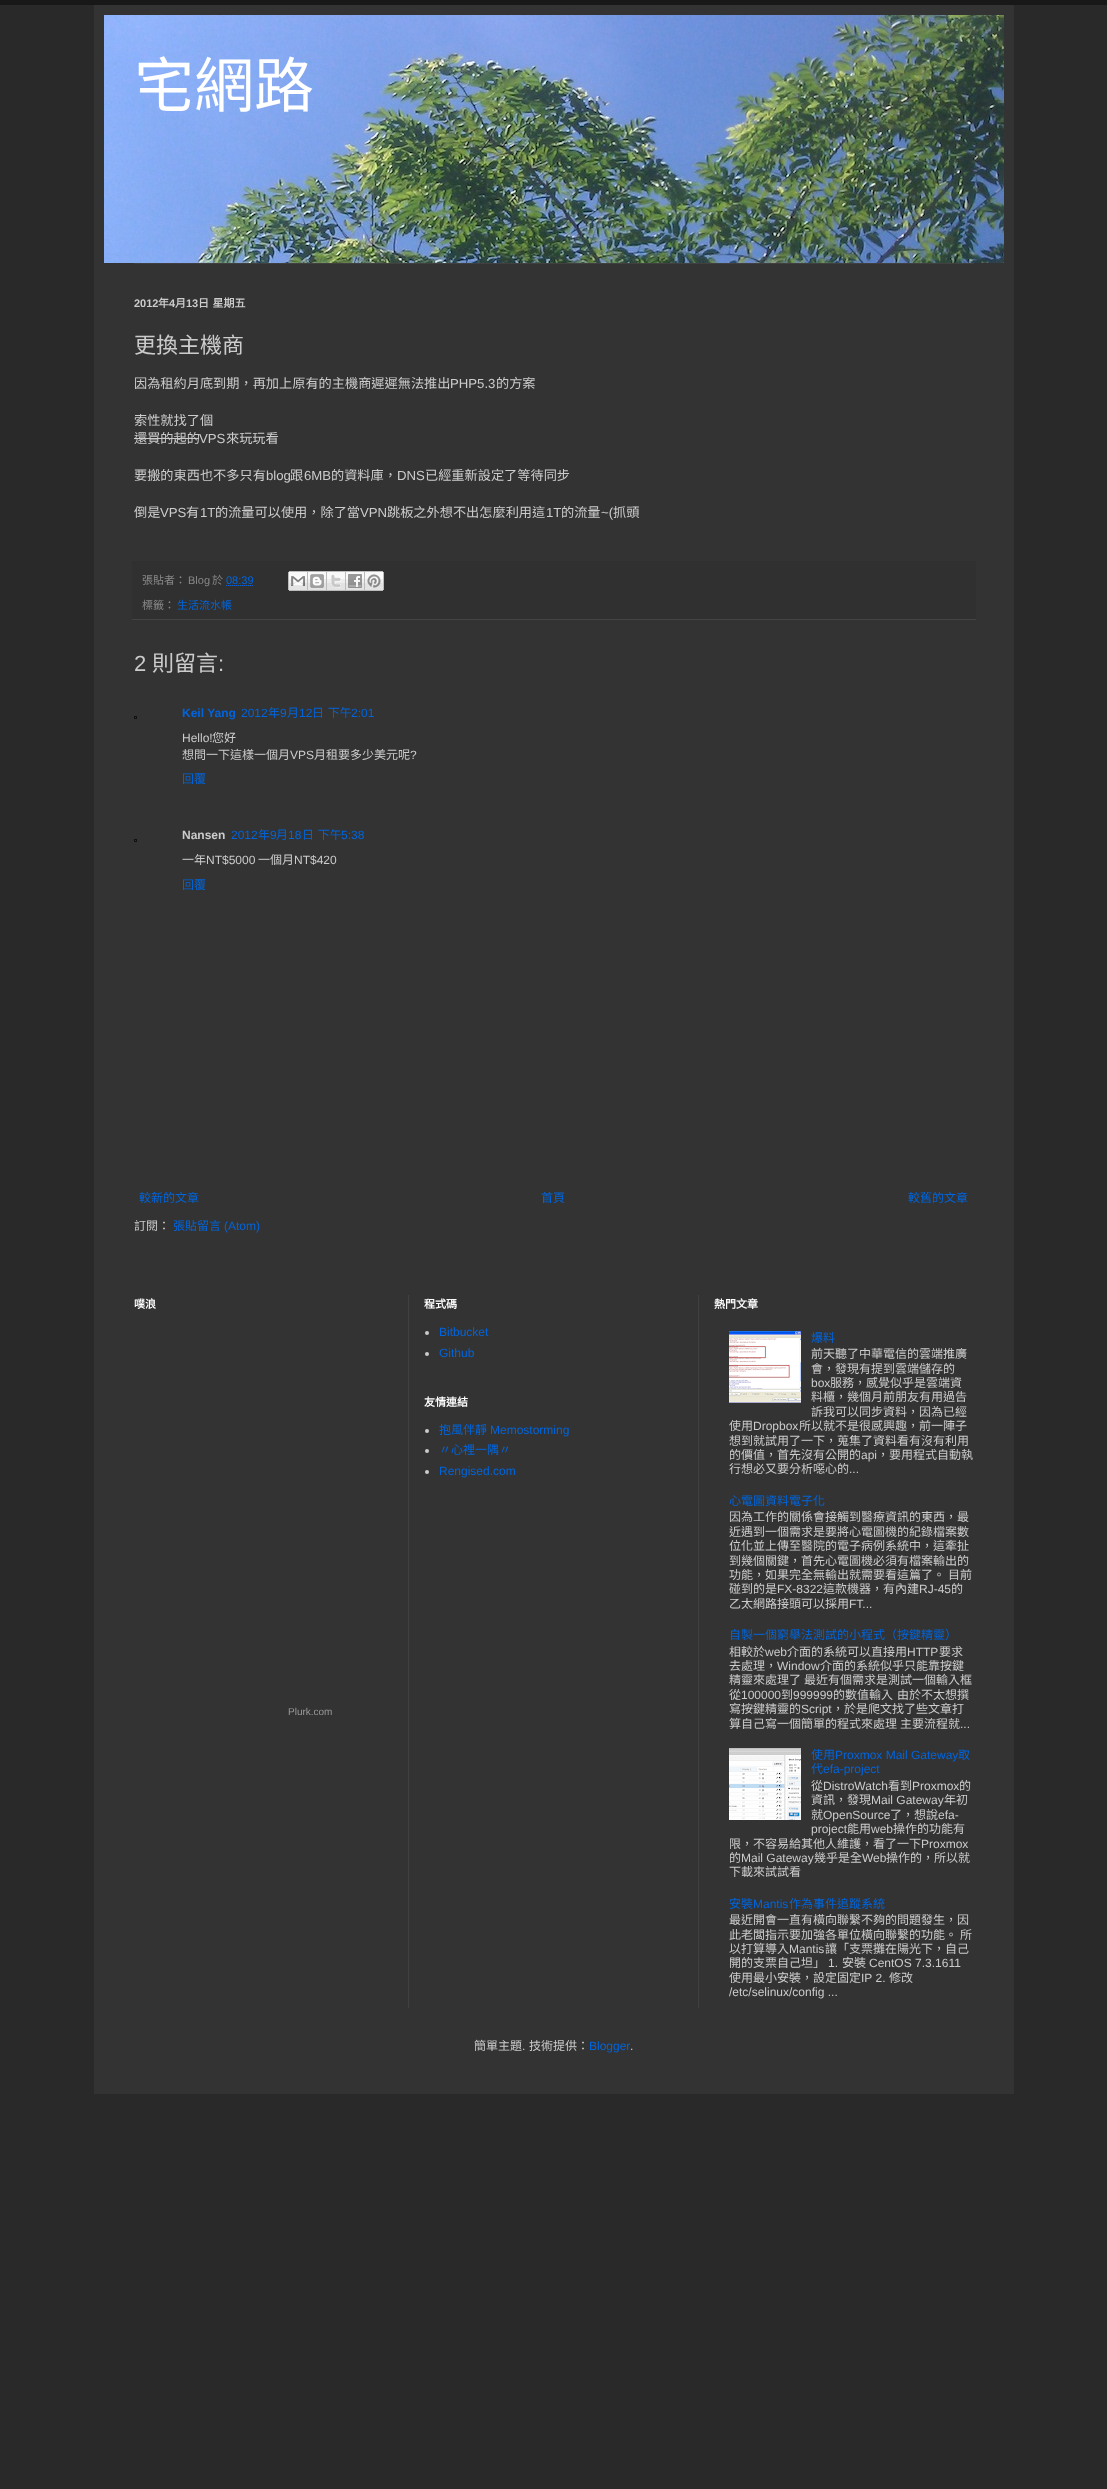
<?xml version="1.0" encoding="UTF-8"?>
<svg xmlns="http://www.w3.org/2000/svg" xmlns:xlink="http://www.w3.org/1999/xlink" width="1107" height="2489">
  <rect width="100%" height="100%" fill="#292929" />
  <rect width="1107" height="5" fill="#000000" fill-opacity="0.4" />
  <rect x="94" y="5" width="920" height="2089" fill="#333333" />
  <image x="104" y="15" width="900" height="248" xlink:href="image1.png" />
  <rect x="134" y="263" width="840" height="1" fill="#404040" />
  <rect x="134" y="438" width="65" height="1" fill="#cccccc" />
  <rect x="132" y="561" width="844" height="58" fill="#303030" />
  <rect x="132" y="619" width="844" height="1" fill="#444444" />
  <path d="M 226 585.5 h 27" fill="none" stroke="#0065dd" stroke-dasharray="1 1" />
  <image x="288" y="571" width="20" height="20" xlink:href="image2.png" />
  <image x="308" y="571" width="19" height="20" xlink:href="image3.png" />
  <image x="327" y="571" width="19" height="20" xlink:href="image4.png" />
  <image x="346" y="571" width="19" height="20" xlink:href="image5.png" />
  <image x="365" y="571" width="19" height="20" xlink:href="image6.png" />
  <rect x="134.5" y="716.5" width="2" height="2" fill="none" stroke="#111111" />
  <rect x="134.5" y="839.5" width="2" height="2" fill="none" stroke="#111111" />
  <rect x="408" y="1295" width="1" height="713" fill="#404040" />
  <circle cx="427" cy="1333" r="2" fill="#cccccc" />
  <circle cx="427" cy="1354" r="2" fill="#cccccc" />
  <circle cx="427" cy="1431" r="2" fill="#cccccc" />
  <circle cx="427" cy="1451" r="2" fill="#cccccc" />
  <circle cx="427" cy="1472" r="2" fill="#cccccc" />
  <rect x="698" y="1295" width="1" height="713" fill="#404040" />
  <image x="729" y="1331" width="72" height="72" xlink:href="image7.png" />
  <image x="729" y="1748" width="72" height="72" xlink:href="image8.png" />
  <text x="134" y="107" style="font-family: Noto Sans CJK TC; font-size: 60px; fill: #ffffff">宅網路</text>
  <text x="134" y="307" style="font-family: Liberation Sans; font-size: 11px; font-weight: bold; fill: #cccccc">2012</text>
  <text x="158" y="307" style="font-family: Noto Sans CJK TC; font-size: 11px; font-weight: bold; fill: #cccccc">年</text>
  <text x="169" y="307" style="font-family: Liberation Sans; font-size: 11px; font-weight: bold; fill: #cccccc">4</text>
  <text x="175" y="307" style="font-family: Noto Sans CJK TC; font-size: 11px; font-weight: bold; fill: #cccccc">月</text>
  <text x="186" y="307" style="font-family: Liberation Sans; font-size: 11px; font-weight: bold; fill: #cccccc">13</text>
  <text x="198" y="307" word-spacing="1" style="font-family: Noto Sans CJK TC; font-size: 11px; font-weight: bold; fill: #cccccc">日 星期五</text>
  <text x="134" y="353" style="font-family: Noto Sans CJK TC; font-size: 22px; fill: #cccccc">更換主機商</text>
  <text x="134" y="388" style="font-family: Noto Sans CJK TC; font-size: 13.2px; fill: #cccccc">因為租約月底到期，再加上原有的主機商遲遲無法推出</text>
  <text x="450" y="388" style="font-family: Liberation Sans; font-size: 13.2px; fill: #cccccc">PHP5.3</text>
  <text x="496" y="388" style="font-family: Noto Sans CJK TC; font-size: 13.2px; fill: #cccccc">的方案</text>
  <text x="134" y="425" style="font-family: Noto Sans CJK TC; font-size: 13.2px; fill: #cccccc">索性就找了個</text>
  <text x="134" y="443" style="font-family: Noto Sans CJK TC; font-size: 13.2px; fill: #cccccc">還買的起的</text>
  <text x="199" y="443" style="font-family: Liberation Sans; font-size: 13.2px; fill: #cccccc">VPS</text>
  <text x="226" y="443" style="font-family: Noto Sans CJK TC; font-size: 13.2px; fill: #cccccc">來玩玩看</text>
  <text x="134" y="480" style="font-family: Noto Sans CJK TC; font-size: 13.2px; fill: #cccccc">要搬的東西也不多只有</text>
  <text x="266" y="480" style="font-family: Liberation Sans; font-size: 13.2px; fill: #cccccc">blog</text>
  <text x="290" y="480" style="font-family: Noto Sans CJK TC; font-size: 13.2px; fill: #cccccc">跟</text>
  <text x="304" y="480" style="font-family: Liberation Sans; font-size: 13.2px; fill: #cccccc">6MB</text>
  <text x="331" y="480" style="font-family: Noto Sans CJK TC; font-size: 13.2px; fill: #cccccc">的資料庫，</text>
  <text x="397" y="480" style="font-family: Liberation Sans; font-size: 13.2px; fill: #cccccc">DNS</text>
  <text x="425" y="480" style="font-family: Noto Sans CJK TC; font-size: 13.2px; fill: #cccccc">已經重新設定了等待同步</text>
  <text x="134" y="517" style="font-family: Noto Sans CJK TC; font-size: 13.2px; fill: #cccccc">倒是</text>
  <text x="160" y="517" style="font-family: Liberation Sans; font-size: 13.2px; fill: #cccccc">VPS</text>
  <text x="186" y="517" style="font-family: Noto Sans CJK TC; font-size: 13.2px; fill: #cccccc">有</text>
  <text x="200" y="517" style="font-family: Liberation Sans; font-size: 13.2px; fill: #cccccc">1T</text>
  <text x="215" y="517" style="font-family: Noto Sans CJK TC; font-size: 13.2px; fill: #cccccc">的流量可以使用，除了當</text>
  <text x="360" y="517" style="font-family: Liberation Sans; font-size: 13.2px; fill: #cccccc">VPN</text>
  <text x="387" y="517" style="font-family: Noto Sans CJK TC; font-size: 13.2px; fill: #cccccc">跳板之外想不出怎麼利用這</text>
  <text x="546" y="517" style="font-family: Liberation Sans; font-size: 13.2px; fill: #cccccc">1T</text>
  <text x="561" y="517" style="font-family: Noto Sans CJK TC; font-size: 13.2px; fill: #cccccc">的流量</text>
  <text x="601" y="517" style="font-family: Liberation Sans; font-size: 13.2px; fill: #cccccc">~(</text>
  <text x="613" y="517" style="font-family: Noto Sans CJK TC; font-size: 13.2px; fill: #cccccc">抓頭</text>
  <text x="142" y="584" style="font-family: Noto Sans CJK TC; font-size: 11px; fill: #888888">張貼者：</text>
  <text x="188" y="584" style="font-family: Liberation Sans; font-size: 11px; fill: #888888">Blog</text>
  <text x="212" y="584" style="font-family: Noto Sans CJK TC; font-size: 11px; fill: #888888">於</text>
  <text x="226" y="584" style="font-family: Liberation Sans; font-size: 11px; fill: #0065dd">08:39</text>
  <text x="142" y="609" style="font-family: Noto Sans CJK TC; font-size: 11px; fill: #888888">標籤：</text>
  <text x="177" y="609" style="font-family: Noto Sans CJK TC; font-size: 11px; fill: #0065dd">生活流水帳</text>
  <text x="134" y="671" style="font-family: Liberation Sans; font-size: 22px; fill: #cccccc">2</text>
  <text x="152" y="671" style="font-family: Noto Sans CJK TC; font-size: 22px; fill: #cccccc">則留言</text>
  <text x="218" y="671" style="font-family: Liberation Sans; font-size: 22px; fill: #cccccc">:</text>
  <text x="182" y="717" style="font-family: Liberation Sans; font-size: 12px; font-weight: bold; fill: #0065dd">Keil Yang</text>
  <text x="241" y="717" style="font-family: Liberation Sans; font-size: 12px; fill: #0065dd">2012</text>
  <text x="268" y="717" style="font-family: Noto Sans CJK TC; font-size: 12px; fill: #0065dd">年</text>
  <text x="280" y="717" style="font-family: Liberation Sans; font-size: 12px; fill: #0065dd">9</text>
  <text x="287" y="717" style="font-family: Noto Sans CJK TC; font-size: 12px; fill: #0065dd">月</text>
  <text x="299" y="717" style="font-family: Liberation Sans; font-size: 12px; fill: #0065dd">12</text>
  <text x="312" y="717" word-spacing="1" style="font-family: Noto Sans CJK TC; font-size: 12px; fill: #0065dd">日 下午</text>
  <text x="351" y="717" style="font-family: Liberation Sans; font-size: 12px; fill: #0065dd">2:01</text>
  <text x="182" y="742" style="font-family: Liberation Sans; font-size: 12px; fill: #cccccc">Hello!</text>
  <text x="212" y="742" style="font-family: Noto Sans CJK TC; font-size: 12px; fill: #cccccc">您好</text>
  <text x="182" y="759" style="font-family: Noto Sans CJK TC; font-size: 12px; fill: #cccccc">想問一下這樣一個月</text>
  <text x="290" y="759" style="font-family: Liberation Sans; font-size: 12px; fill: #cccccc">VPS</text>
  <text x="314" y="759" style="font-family: Noto Sans CJK TC; font-size: 12px; fill: #cccccc">月租要多少美元呢</text>
  <text x="410" y="759" style="font-family: Liberation Sans; font-size: 12px; fill: #cccccc">?</text>
  <text x="182" y="783" style="font-family: Noto Sans CJK TC; font-size: 12px; fill: #0065dd">回覆</text>
  <text x="182" y="839" style="font-family: Liberation Sans; font-size: 12px; font-weight: bold; fill: #cccccc">Nansen</text>
  <text x="231" y="839" style="font-family: Liberation Sans; font-size: 12px; fill: #0065dd">2012</text>
  <text x="258" y="839" style="font-family: Noto Sans CJK TC; font-size: 12px; fill: #0065dd">年</text>
  <text x="270" y="839" style="font-family: Liberation Sans; font-size: 12px; fill: #0065dd">9</text>
  <text x="276" y="839" style="font-family: Noto Sans CJK TC; font-size: 12px; fill: #0065dd">月</text>
  <text x="288" y="839" style="font-family: Liberation Sans; font-size: 12px; fill: #0065dd">18</text>
  <text x="302" y="839" word-spacing="1" style="font-family: Noto Sans CJK TC; font-size: 12px; fill: #0065dd">日 下午</text>
  <text x="341" y="839" style="font-family: Liberation Sans; font-size: 12px; fill: #0065dd">5:38</text>
  <text x="182" y="864" style="font-family: Noto Sans CJK TC; font-size: 12px; fill: #cccccc">一年</text>
  <text x="206" y="864" style="font-family: Liberation Sans; font-size: 12px; fill: #cccccc">NT$5000</text>
  <text x="258" y="864" style="font-family: Noto Sans CJK TC; font-size: 12px; fill: #cccccc">一個月</text>
  <text x="294" y="864" style="font-family: Liberation Sans; font-size: 12px; fill: #cccccc">NT$420</text>
  <text x="182" y="889" style="font-family: Noto Sans CJK TC; font-size: 12px; fill: #0065dd">回覆</text>
  <text x="139" y="1202" style="font-family: Noto Sans CJK TC; font-size: 12px; fill: #0065dd">較新的文章</text>
  <text x="541" y="1202" style="font-family: Noto Sans CJK TC; font-size: 12px; fill: #0065dd">首頁</text>
  <text x="908" y="1202" style="font-family: Noto Sans CJK TC; font-size: 12px; fill: #0065dd">較舊的文章</text>
  <text x="134" y="1230" style="font-family: Noto Sans CJK TC; font-size: 12px; fill: #cccccc">訂閱：</text>
  <text x="173" y="1230" style="font-family: Noto Sans CJK TC; font-size: 12px; fill: #0065dd">張貼留言</text>
  <text x="224" y="1230" style="font-family: Liberation Sans; font-size: 12px; fill: #0065dd">(Atom)</text>
  <text x="134" y="1308" style="font-family: Noto Sans CJK TC; font-size: 11px; font-weight: bold; fill: #ffffff">噗浪</text>
  <text x="288" y="1715" style="font-family: Liberation Sans; font-size: 10px; fill: #999999">Plurk.com</text>
  <text x="424" y="1308" style="font-family: Noto Sans CJK TC; font-size: 11px; font-weight: bold; fill: #ffffff">程式碼</text>
  <text x="439" y="1336" style="font-family: Liberation Sans; font-size: 12px; fill: #0065dd">Bitbucket</text>
  <text x="439" y="1357" style="font-family: Liberation Sans; font-size: 12px; fill: #0065dd">Github</text>
  <text x="424" y="1406" style="font-family: Noto Sans CJK TC; font-size: 11px; font-weight: bold; fill: #ffffff">友情連結</text>
  <text x="439" y="1434" style="font-family: Noto Sans CJK TC; font-size: 12px; fill: #0065dd">抱風伴靜</text>
  <text x="490" y="1434" style="font-family: Liberation Sans; font-size: 12px; fill: #0065dd">Memostorming</text>
  <text x="439" y="1454" style="font-family: Noto Sans CJK TC; font-size: 12px; fill: #0065dd">〃心裡一隅〃</text>
  <text x="439" y="1475" style="font-family: Liberation Sans; font-size: 12px; fill: #0065dd">Rengised.com</text>
  <text x="714" y="1308" style="font-family: Noto Sans CJK TC; font-size: 11px; font-weight: bold; fill: #ffffff">熱門文章</text>
  <text x="811" y="1342" style="font-family: Noto Sans CJK TC; font-size: 12px; fill: #0065dd">爆料</text>
  <text x="811" y="1358" style="font-family: Noto Sans CJK TC; font-size: 12px; fill: #cccccc">前天聽了中華電信的雲端推廣</text>
  <text x="811" y="1373" style="font-family: Noto Sans CJK TC; font-size: 12px; fill: #cccccc">會，發現有提到雲端儲存的</text>
  <text x="811" y="1387" style="font-family: Liberation Sans; font-size: 12px; fill: #cccccc">box</text>
  <text x="830" y="1387" style="font-family: Noto Sans CJK TC; font-size: 12px; fill: #cccccc">服務，感覺似乎是雲端資</text>
  <text x="811" y="1401" style="font-family: Noto Sans CJK TC; font-size: 12px; fill: #cccccc">料櫃，幾個月前朋友有用過告</text>
  <text x="811" y="1416" style="font-family: Noto Sans CJK TC; font-size: 12px; fill: #cccccc">訴我可以同步資料，因為已經</text>
  <text x="729" y="1430" style="font-family: Noto Sans CJK TC; font-size: 12px; fill: #cccccc">使用</text>
  <text x="753" y="1430" style="font-family: Liberation Sans; font-size: 12px; fill: #cccccc">Dropbox</text>
  <text x="799" y="1430" style="font-family: Noto Sans CJK TC; font-size: 12px; fill: #cccccc">所以就不是很感興趣，前一陣子</text>
  <text x="729" y="1445" style="font-family: Noto Sans CJK TC; font-size: 12px; fill: #cccccc">想到就試用了一下，蒐集了資料看有沒有利用</text>
  <text x="729" y="1459" style="font-family: Noto Sans CJK TC; font-size: 12px; fill: #cccccc">的價值，首先沒有公開的</text>
  <text x="861" y="1459" style="font-family: Liberation Sans; font-size: 12px; fill: #cccccc">api</text>
  <text x="877" y="1459" style="font-family: Noto Sans CJK TC; font-size: 12px; fill: #cccccc">，要用程式自動執</text>
  <text x="729" y="1473" style="font-family: Noto Sans CJK TC; font-size: 12px; fill: #cccccc">行想必又要分析噁心的</text>
  <text x="849" y="1473" style="font-family: Liberation Sans; font-size: 12px; fill: #cccccc">...</text>
  <text x="729" y="1505" style="font-family: Noto Sans CJK TC; font-size: 12px; fill: #0065dd">心電圖資料電子化</text>
  <text x="729" y="1521" style="font-family: Noto Sans CJK TC; font-size: 12px; fill: #cccccc">因為工作的關係會接觸到醫療資訊的東西，最</text>
  <text x="729" y="1536" style="font-family: Noto Sans CJK TC; font-size: 12px; fill: #cccccc">近遇到一個需求是要將心電圖機的紀錄檔案數</text>
  <text x="729" y="1550" style="font-family: Noto Sans CJK TC; font-size: 12px; fill: #cccccc">位化並上傳至醫院的電子病例系統中，這牽扯</text>
  <text x="729" y="1565" style="font-family: Noto Sans CJK TC; font-size: 12px; fill: #cccccc">到幾個關鍵，首先心電圖機必須有檔案輸出的</text>
  <text x="729" y="1579" style="font-family: Noto Sans CJK TC; font-size: 12px; fill: #cccccc">功能，如果完全無輸出就需要看這篇了。</text>
  <text x="948" y="1579" style="font-family: Noto Sans CJK TC; font-size: 12px; fill: #cccccc">目前</text>
  <text x="729" y="1593" style="font-family: Noto Sans CJK TC; font-size: 12px; fill: #cccccc">碰到的是</text>
  <text x="777" y="1593" style="font-family: Liberation Sans; font-size: 12px; fill: #cccccc">FX-8322</text>
  <text x="823" y="1593" style="font-family: Noto Sans CJK TC; font-size: 12px; fill: #cccccc">這款機器，有內建</text>
  <text x="919" y="1593" style="font-family: Liberation Sans; font-size: 12px; fill: #cccccc">RJ-45</text>
  <text x="951" y="1593" style="font-family: Noto Sans CJK TC; font-size: 12px; fill: #cccccc">的</text>
  <text x="729" y="1608" style="font-family: Noto Sans CJK TC; font-size: 12px; fill: #cccccc">乙太網路接頭可以採用</text>
  <text x="849" y="1608" style="font-family: Liberation Sans; font-size: 12px; fill: #cccccc">FT...</text>
  <text x="729" y="1639" style="font-family: Noto Sans CJK TC; font-size: 12px; fill: #0065dd">自製一個窮舉法測試的小程式（按鍵精靈）</text>
  <text x="729" y="1656" style="font-family: Noto Sans CJK TC; font-size: 12px; fill: #cccccc">相較於</text>
  <text x="765" y="1656" style="font-family: Liberation Sans; font-size: 12px; fill: #cccccc">web</text>
  <text x="787" y="1656" style="font-family: Noto Sans CJK TC; font-size: 12px; fill: #cccccc">介面的系統可以直接用</text>
  <text x="907" y="1656" style="font-family: Liberation Sans; font-size: 12px; fill: #cccccc">HTTP</text>
  <text x="939" y="1656" style="font-family: Noto Sans CJK TC; font-size: 12px; fill: #cccccc">要求</text>
  <text x="729" y="1670" style="font-family: Noto Sans CJK TC; font-size: 12px; fill: #cccccc">去處理，</text>
  <text x="777" y="1670" style="font-family: Liberation Sans; font-size: 12px; fill: #cccccc">Window</text>
  <text x="820" y="1670" style="font-family: Noto Sans CJK TC; font-size: 12px; fill: #cccccc">介面的系統似乎只能靠按鍵</text>
  <text x="729" y="1684" style="font-family: Noto Sans CJK TC; font-size: 12px; fill: #cccccc">精靈來處理了</text>
  <text x="804" y="1684" style="font-family: Noto Sans CJK TC; font-size: 12px; fill: #cccccc">最近有個需求是測試一個輸入框</text>
  <text x="729" y="1699" style="font-family: Noto Sans CJK TC; font-size: 12px; fill: #cccccc">從</text>
  <text x="741" y="1699" style="font-family: Liberation Sans; font-size: 12px; fill: #cccccc">100000</text>
  <text x="781" y="1699" style="font-family: Noto Sans CJK TC; font-size: 12px; fill: #cccccc">到</text>
  <text x="793" y="1699" style="font-family: Liberation Sans; font-size: 12px; fill: #cccccc">999999</text>
  <text x="833" y="1699" style="font-family: Noto Sans CJK TC; font-size: 12px; fill: #cccccc">的數值輸入</text>
  <text x="897" y="1699" style="font-family: Noto Sans CJK TC; font-size: 12px; fill: #cccccc">由於不太想撰</text>
  <text x="729" y="1713" style="font-family: Noto Sans CJK TC; font-size: 12px; fill: #cccccc">寫按鍵精靈的</text>
  <text x="801" y="1713" style="font-family: Liberation Sans; font-size: 12px; fill: #cccccc">Script</text>
  <text x="832" y="1713" style="font-family: Noto Sans CJK TC; font-size: 12px; fill: #cccccc">，於是爬文找了些文章打</text>
  <text x="729" y="1728" style="font-family: Noto Sans CJK TC; font-size: 12px; fill: #cccccc">算自己寫一個簡單的程式來處理</text>
  <text x="900" y="1728" style="font-family: Noto Sans CJK TC; font-size: 12px; fill: #cccccc">主要流程就</text>
  <text x="960" y="1728" style="font-family: Liberation Sans; font-size: 12px; fill: #cccccc">...</text>
  <text x="811" y="1759" style="font-family: Noto Sans CJK TC; font-size: 12px; fill: #0065dd">使用</text>
  <text x="835" y="1759" style="font-family: Liberation Sans; font-size: 12px; fill: #0065dd">Proxmox Mail Gateway</text>
  <text x="958" y="1759" style="font-family: Noto Sans CJK TC; font-size: 12px; fill: #0065dd">取</text>
  <text x="811" y="1773" style="font-family: Noto Sans CJK TC; font-size: 12px; fill: #0065dd">代</text>
  <text x="823" y="1773" style="font-family: Liberation Sans; font-size: 12px; fill: #0065dd">efa-project</text>
  <text x="811" y="1790" style="font-family: Noto Sans CJK TC; font-size: 12px; fill: #cccccc">從</text>
  <text x="823" y="1790" style="font-family: Liberation Sans; font-size: 12px; fill: #cccccc">DistroWatch</text>
  <text x="888" y="1790" style="font-family: Noto Sans CJK TC; font-size: 12px; fill: #cccccc">看到</text>
  <text x="912" y="1790" style="font-family: Liberation Sans; font-size: 12px; fill: #cccccc">Proxmox</text>
  <text x="959" y="1790" style="font-family: Noto Sans CJK TC; font-size: 12px; fill: #cccccc">的</text>
  <text x="811" y="1804" style="font-family: Noto Sans CJK TC; font-size: 12px; fill: #cccccc">資訊，發現</text>
  <text x="871" y="1804" style="font-family: Liberation Sans; font-size: 12px; fill: #cccccc">Mail Gateway</text>
  <text x="944" y="1804" style="font-family: Noto Sans CJK TC; font-size: 12px; fill: #cccccc">年初</text>
  <text x="811" y="1819" style="font-family: Noto Sans CJK TC; font-size: 12px; fill: #cccccc">就</text>
  <text x="823" y="1819" style="font-family: Liberation Sans; font-size: 12px; fill: #cccccc">OpenSource</text>
  <text x="890" y="1819" style="font-family: Noto Sans CJK TC; font-size: 12px; fill: #cccccc">了，想說</text>
  <text x="938" y="1819" style="font-family: Liberation Sans; font-size: 12px; fill: #cccccc">efa-</text>
  <text x="811" y="1833" style="font-family: Liberation Sans; font-size: 12px; fill: #cccccc">project</text>
  <text x="847" y="1833" style="font-family: Noto Sans CJK TC; font-size: 12px; fill: #cccccc">能用</text>
  <text x="871" y="1833" style="font-family: Liberation Sans; font-size: 12px; fill: #cccccc">web</text>
  <text x="893" y="1833" style="font-family: Noto Sans CJK TC; font-size: 12px; fill: #cccccc">操作的功能有</text>
  <text x="729" y="1848" style="font-family: Noto Sans CJK TC; font-size: 12px; fill: #cccccc">限，不容易給其他人維護，看了一下</text>
  <text x="921" y="1848" style="font-family: Liberation Sans; font-size: 12px; fill: #cccccc">Proxmox</text>
  <text x="729" y="1862" style="font-family: Noto Sans CJK TC; font-size: 12px; fill: #cccccc">的</text>
  <text x="741" y="1862" style="font-family: Liberation Sans; font-size: 12px; fill: #cccccc">Mail Gateway</text>
  <text x="814" y="1862" style="font-family: Noto Sans CJK TC; font-size: 12px; fill: #cccccc">幾乎是全</text>
  <text x="862" y="1862" style="font-family: Liberation Sans; font-size: 12px; fill: #cccccc">Web</text>
  <text x="886" y="1862" style="font-family: Noto Sans CJK TC; font-size: 12px; fill: #cccccc">操作的，所以就</text>
  <text x="729" y="1876" style="font-family: Noto Sans CJK TC; font-size: 12px; fill: #cccccc">下載來試試看</text>
  <text x="729" y="1908" style="font-family: Noto Sans CJK TC; font-size: 12px; fill: #0065dd">安裝</text>
  <text x="753" y="1908" style="font-family: Liberation Sans; font-size: 12px; fill: #0065dd">Mantis</text>
  <text x="789" y="1908" style="font-family: Noto Sans CJK TC; font-size: 12px; fill: #0065dd">作為事件追蹤系統</text>
  <text x="729" y="1924" style="font-family: Noto Sans CJK TC; font-size: 12px; fill: #cccccc">最近開會一直有橫向聯繫不夠的問題發生，因</text>
  <text x="729" y="1939" style="font-family: Noto Sans CJK TC; font-size: 12px; fill: #cccccc">此老闆指示要加強各單位橫向聯繫的功能。</text>
  <text x="960" y="1939" style="font-family: Noto Sans CJK TC; font-size: 12px; fill: #cccccc">所</text>
  <text x="729" y="1953" style="font-family: Noto Sans CJK TC; font-size: 12px; fill: #cccccc">以打算導入</text>
  <text x="789" y="1953" style="font-family: Liberation Sans; font-size: 12px; fill: #cccccc">Mantis</text>
  <text x="825" y="1953" style="font-family: Noto Sans CJK TC; font-size: 12px; fill: #cccccc">讓「支票攤在陽光下，自己</text>
  <text x="729" y="1967" style="font-family: Noto Sans CJK TC; font-size: 12px; fill: #cccccc">開的支票自己坦」</text>
  <text x="828" y="1967" style="font-family: Liberation Sans; font-size: 12px; fill: #cccccc">1.</text>
  <text x="842" y="1967" style="font-family: Noto Sans CJK TC; font-size: 12px; fill: #cccccc">安裝</text>
  <text x="869" y="1967" style="font-family: Liberation Sans; font-size: 12px; fill: #cccccc">CentOS 7.3.1611</text>
  <text x="729" y="1982" style="font-family: Noto Sans CJK TC; font-size: 12px; fill: #cccccc">使用最小安裝，設定固定</text>
  <text x="861" y="1982" style="font-family: Liberation Sans; font-size: 12px; fill: #cccccc">IP 2.</text>
  <text x="889" y="1982" style="font-family: Noto Sans CJK TC; font-size: 12px; fill: #cccccc">修改</text>
  <text x="729" y="1996" style="font-family: Liberation Sans; font-size: 12px; fill: #cccccc">/etc/selinux/config ...</text>
  <text x="474" y="2050" style="font-family: Noto Sans CJK TC; font-size: 12px; fill: #cccccc">簡單主題</text>
  <text x="522" y="2050" style="font-family: Liberation Sans; font-size: 12px; fill: #cccccc">.</text>
  <text x="529" y="2050" style="font-family: Noto Sans CJK TC; font-size: 12px; fill: #cccccc">技術提供：</text>
  <text x="589" y="2050" style="font-family: Liberation Sans; font-size: 12px; fill: #0065dd">Blogger</text>
  <text x="630" y="2050" style="font-family: Liberation Sans; font-size: 12px; fill: #cccccc">.</text>
</svg>
